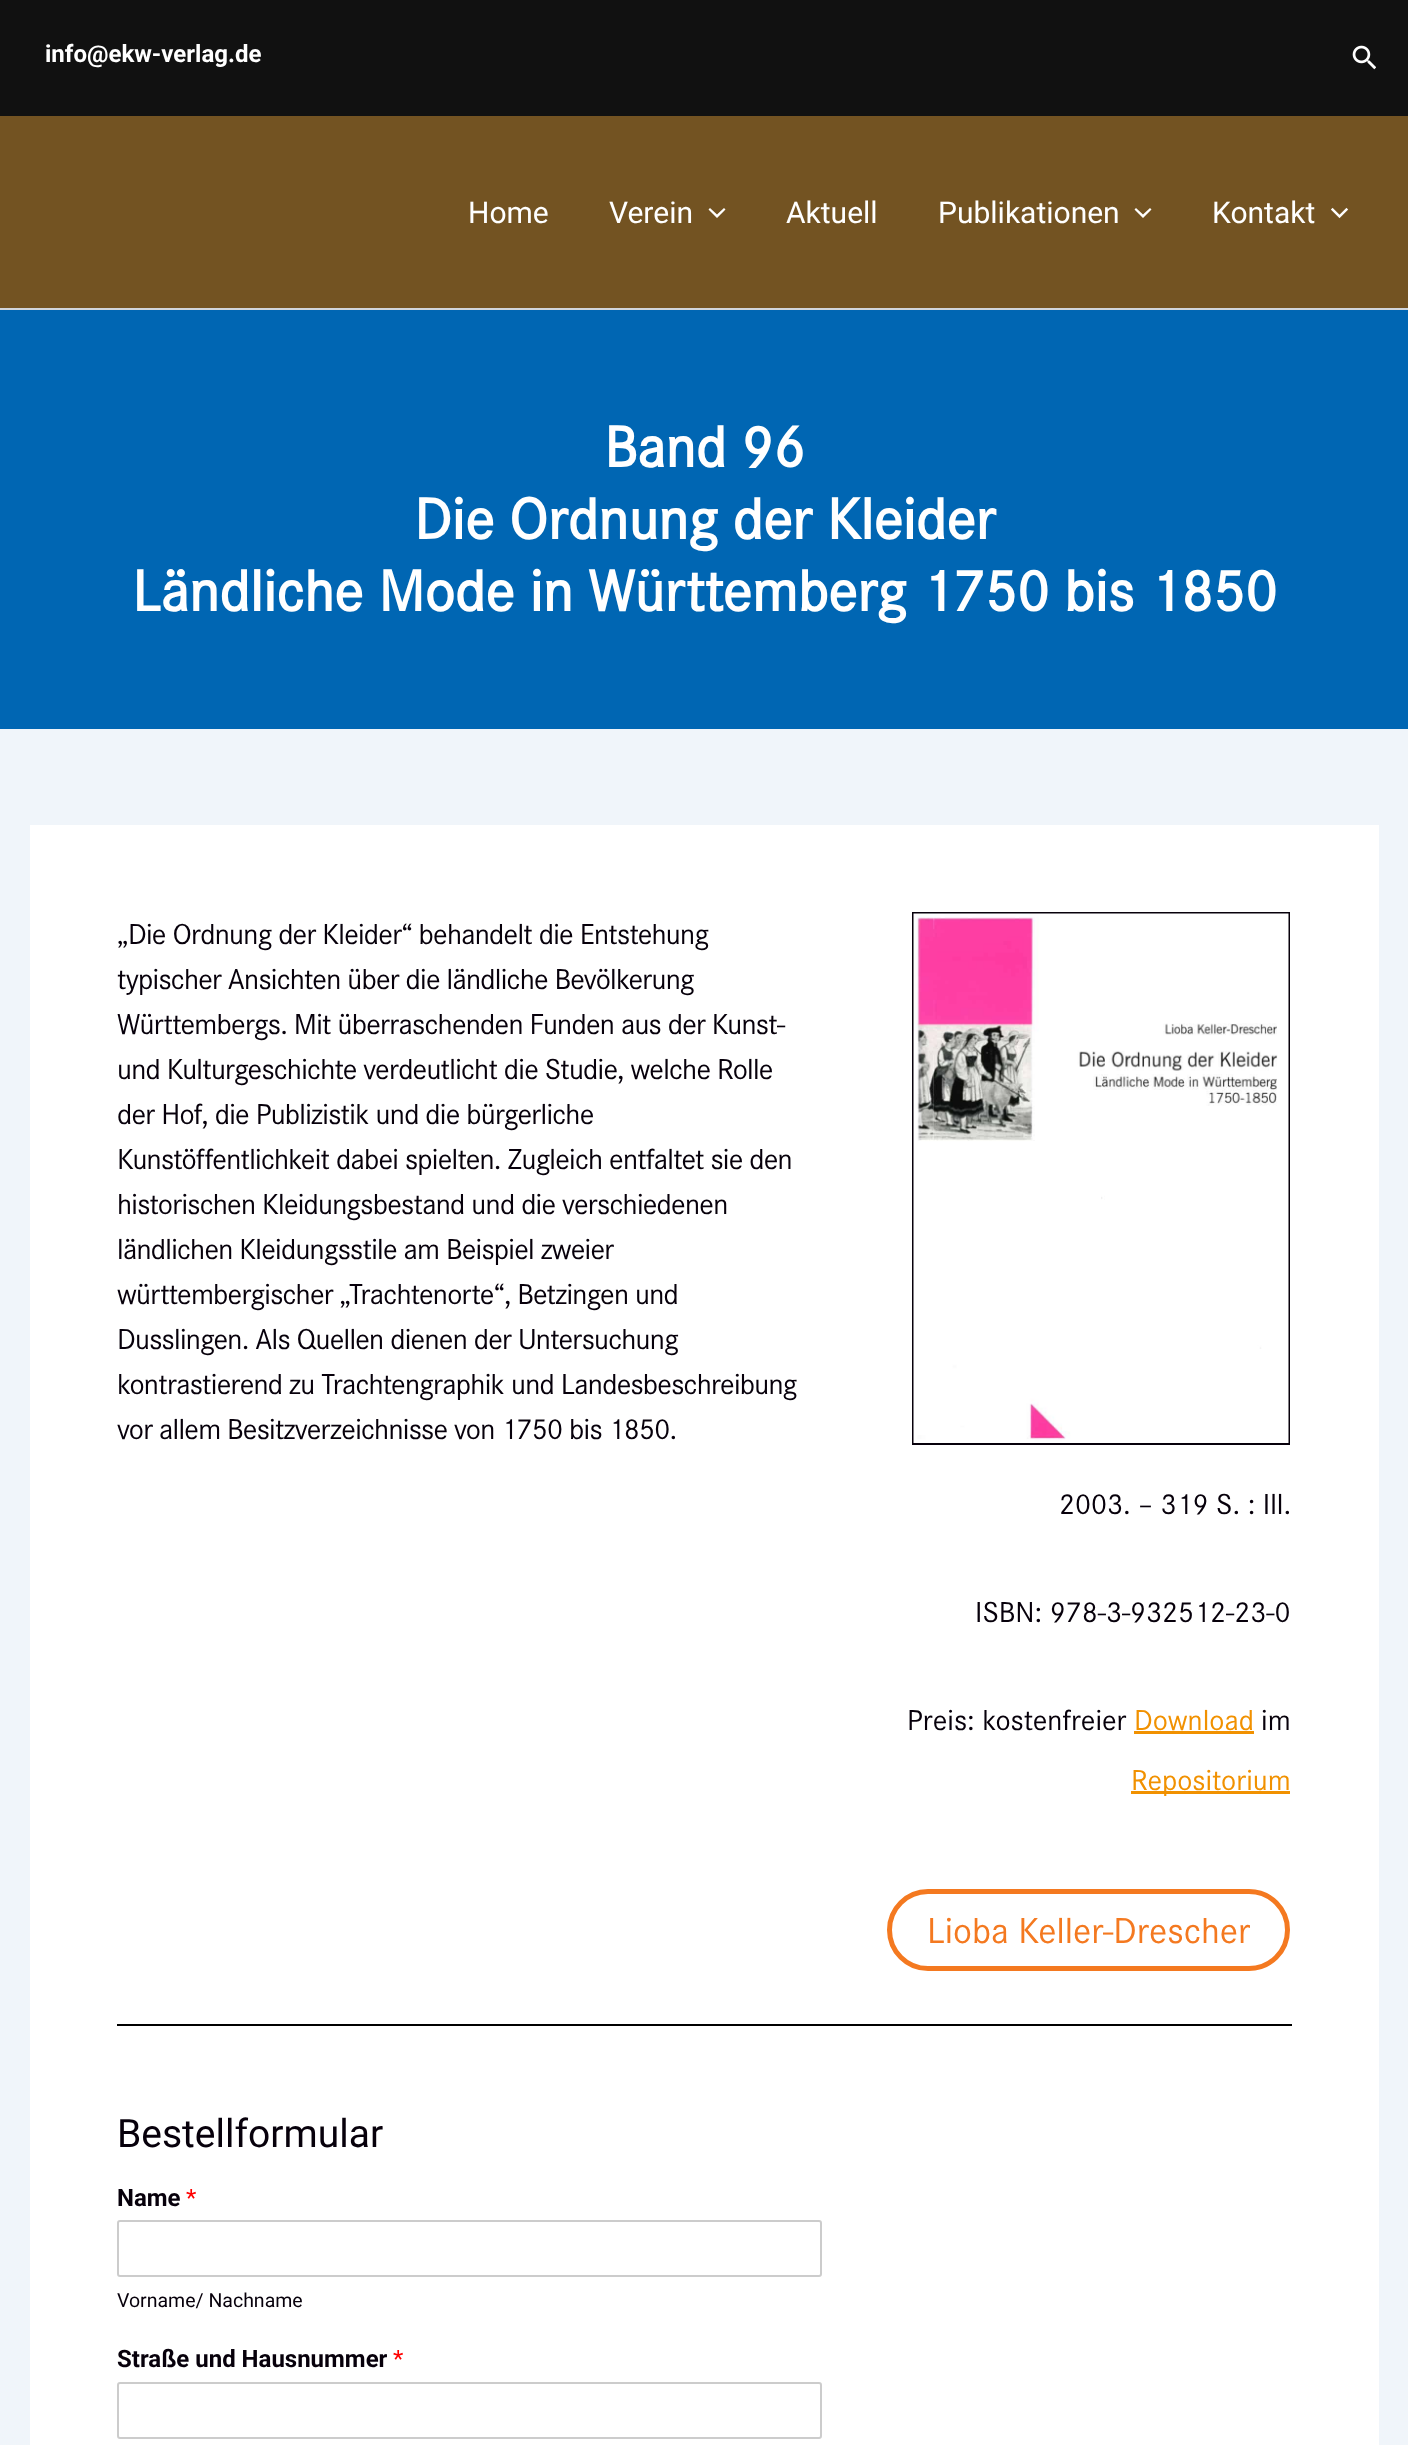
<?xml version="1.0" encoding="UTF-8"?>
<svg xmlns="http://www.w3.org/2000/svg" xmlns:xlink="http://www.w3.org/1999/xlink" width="1408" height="2445">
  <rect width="100%" height="100%" fill="#f0f5fa" />
  <rect width="1408" height="116" fill="#111111" />
  <image x="1352" y="45" width="24" height="25" xlink:href="image1.png" />
  <rect y="116" width="1408" height="192" fill="#735322" />
  <rect y="308" width="1408" height="2" fill="#d1d5db" />
  <path d="M 708.5 209.5 l 8.5 8.5 l 8.5 -8.5 l -1.5 -1.5 l -7 6.5 l -7 -6.5 z" fill="#ffffff" />
  <path d="M 1134.5 209.5 l 8.5 8.5 l 8.5 -8.5 l -1.5 -1.5 l -7 6.5 l -7 -6.5 z" fill="#ffffff" />
  <image x="1331" y="207" width="18" height="12" xlink:href="image2.png" />
  <rect y="310" width="1408" height="419" fill="#0066b3" />
  <rect x="30" y="825" width="1349" height="1620" fill="#ffffff" />
  <rect x="913" y="913" width="376" height="531" fill="none" stroke="#07000b" stroke-width="2" />
  <image x="913" y="913" width="376" height="530" xlink:href="image3.png" />
  <rect x="1134" y="1731" width="120" height="3" fill="#f19100" />
  <rect x="1131" y="1791" width="159" height="3" fill="#f19100" />
  <rect x="889.5" y="1891.5" width="398" height="77" rx="38.5" fill="none" stroke="#f47920" stroke-width="5" />
  <rect x="117" y="2024" width="1175" height="2" fill="#000000" />
  <rect x="118" y="2221" width="703" height="55" rx="2" fill="none" stroke="#cccccc" stroke-width="2" />
  <rect x="118" y="2383" width="703" height="55" rx="2" fill="none" stroke="#cccccc" stroke-width="2" />
  <text x="45" y="62" style="font-family: Roboto; font-size: 24px; font-weight: bold; fill: #ffffff">info@ekw-verlag.de</text>
  <text x="468" y="223" style="font-family: Roboto; font-size: 30px; fill: #ffffff">Home</text>
  <text x="609" y="223" style="font-family: Roboto; font-size: 30px; fill: #ffffff">Verein</text>
  <text x="786" y="223" style="font-family: Roboto; font-size: 30px; fill: #ffffff">Aktuell</text>
  <text x="938" y="223" style="font-family: Roboto; font-size: 30px; fill: #ffffff">Publikationen</text>
  <text x="1212" y="223" style="font-family: Roboto; font-size: 30px; fill: #ffffff">Kontakt</text>
  <text x="604" y="467" style="font-family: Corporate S; font-size: 60px; font-weight: bold; fill: #ffffff">Band 96</text>
  <text x="414" y="539" style="font-family: Corporate S; font-size: 60px; font-weight: bold; fill: #ffffff">Die Ordnung der Kleider</text>
  <text x="132" y="611" style="font-family: Corporate S; font-size: 60px; font-weight: bold; fill: #ffffff">Ländliche Mode in Württemberg 1750 bis 1850</text>
  <text x="117" y="944" style="font-family: Corporate S; font-size: 30px; letter-spacing: -0.75px; fill: #07000b">„Die Ordnung der Kleider“ behandelt die Entstehung</text>
  <text x="117" y="989" style="font-family: Corporate S; font-size: 30px; letter-spacing: -0.75px; fill: #07000b">typischer Ansichten über die ländliche Bevölkerung</text>
  <text x="117" y="1034" style="font-family: Corporate S; font-size: 30px; letter-spacing: -0.75px; fill: #07000b">Württembergs. Mit überraschenden Funden aus der Kunst-</text>
  <text x="117" y="1079" style="font-family: Corporate S; font-size: 30px; letter-spacing: -0.75px; fill: #07000b">und Kulturgeschichte verdeutlicht die Studie, welche Rolle</text>
  <text x="117" y="1124" style="font-family: Corporate S; font-size: 30px; letter-spacing: -0.75px; fill: #07000b">der Hof, die Publizistik und die bürgerliche</text>
  <text x="117" y="1169" style="font-family: Corporate S; font-size: 30px; letter-spacing: -0.75px; fill: #07000b">Kunstöffentlichkeit dabei spielten. Zugleich entfaltet sie den</text>
  <text x="117" y="1214" style="font-family: Corporate S; font-size: 30px; letter-spacing: -0.75px; fill: #07000b">historischen Kleidungsbestand und die verschiedenen</text>
  <text x="117" y="1259" style="font-family: Corporate S; font-size: 30px; letter-spacing: -0.75px; fill: #07000b">ländlichen Kleidungsstile am Beispiel zweier</text>
  <text x="117" y="1304" style="font-family: Corporate S; font-size: 30px; letter-spacing: -0.75px; fill: #07000b">württembergischer „Trachtenorte“, Betzingen und</text>
  <text x="117" y="1349" style="font-family: Corporate S; font-size: 30px; letter-spacing: -0.75px; fill: #07000b">Dusslingen. Als Quellen dienen der Untersuchung</text>
  <text x="117" y="1394" style="font-family: Corporate S; font-size: 30px; letter-spacing: -0.75px; fill: #07000b">kontrastierend zu Trachtengraphik und Landesbeschreibung</text>
  <text x="117" y="1439" style="font-family: Corporate S; font-size: 30px; letter-spacing: -0.75px; fill: #07000b">vor allem Besitzverzeichnisse von 1750 bis 1850.</text>
  <text x="1059" y="1514" style="font-family: Corporate S; font-size: 30px; fill: #07000b">2003. – 319 S. : Ill.</text>
  <text x="975" y="1622" style="font-family: Corporate S; font-size: 30px; fill: #07000b">ISBN: 978-3-932512-23-0</text>
  <text x="907" y="1730" style="font-family: Corporate S; font-size: 30px; fill: #07000b">Preis: kostenfreier</text>
  <text x="1134" y="1730" style="font-family: Corporate S; font-size: 30px; fill: #f19100">Download</text>
  <text x="1261" y="1730" style="font-family: Corporate S; font-size: 30px; fill: #07000b">im</text>
  <text x="1131" y="1790" style="font-family: Corporate S; font-size: 30px; fill: #f19100">Repositorium</text>
  <text x="927" y="1943" style="font-family: Corporate S; font-size: 37.5px; fill: #f47920">Lioba Keller-Drescher</text>
  <text x="117" y="2147" style="font-family: Roboto; font-size: 39px; fill: #07000b">Bestellformular</text>
  <text x="117" y="2206" style="font-family: Roboto; font-size: 24px; font-weight: bold; fill: #07000b">Name</text>
  <text x="186" y="2206" style="font-family: Roboto; font-size: 24px; fill: #ff0000">*</text>
  <text x="117" y="2307" style="font-family: Roboto; font-size: 19.5px; fill: #07000b">Vorname/ Nachname</text>
  <text x="117" y="2367" style="font-family: Roboto; font-size: 24px; font-weight: bold; fill: #07000b">Straße und Hausnummer</text>
  <text x="393" y="2367" style="font-family: Roboto; font-size: 24px; fill: #ff0000">*</text>
</svg>
